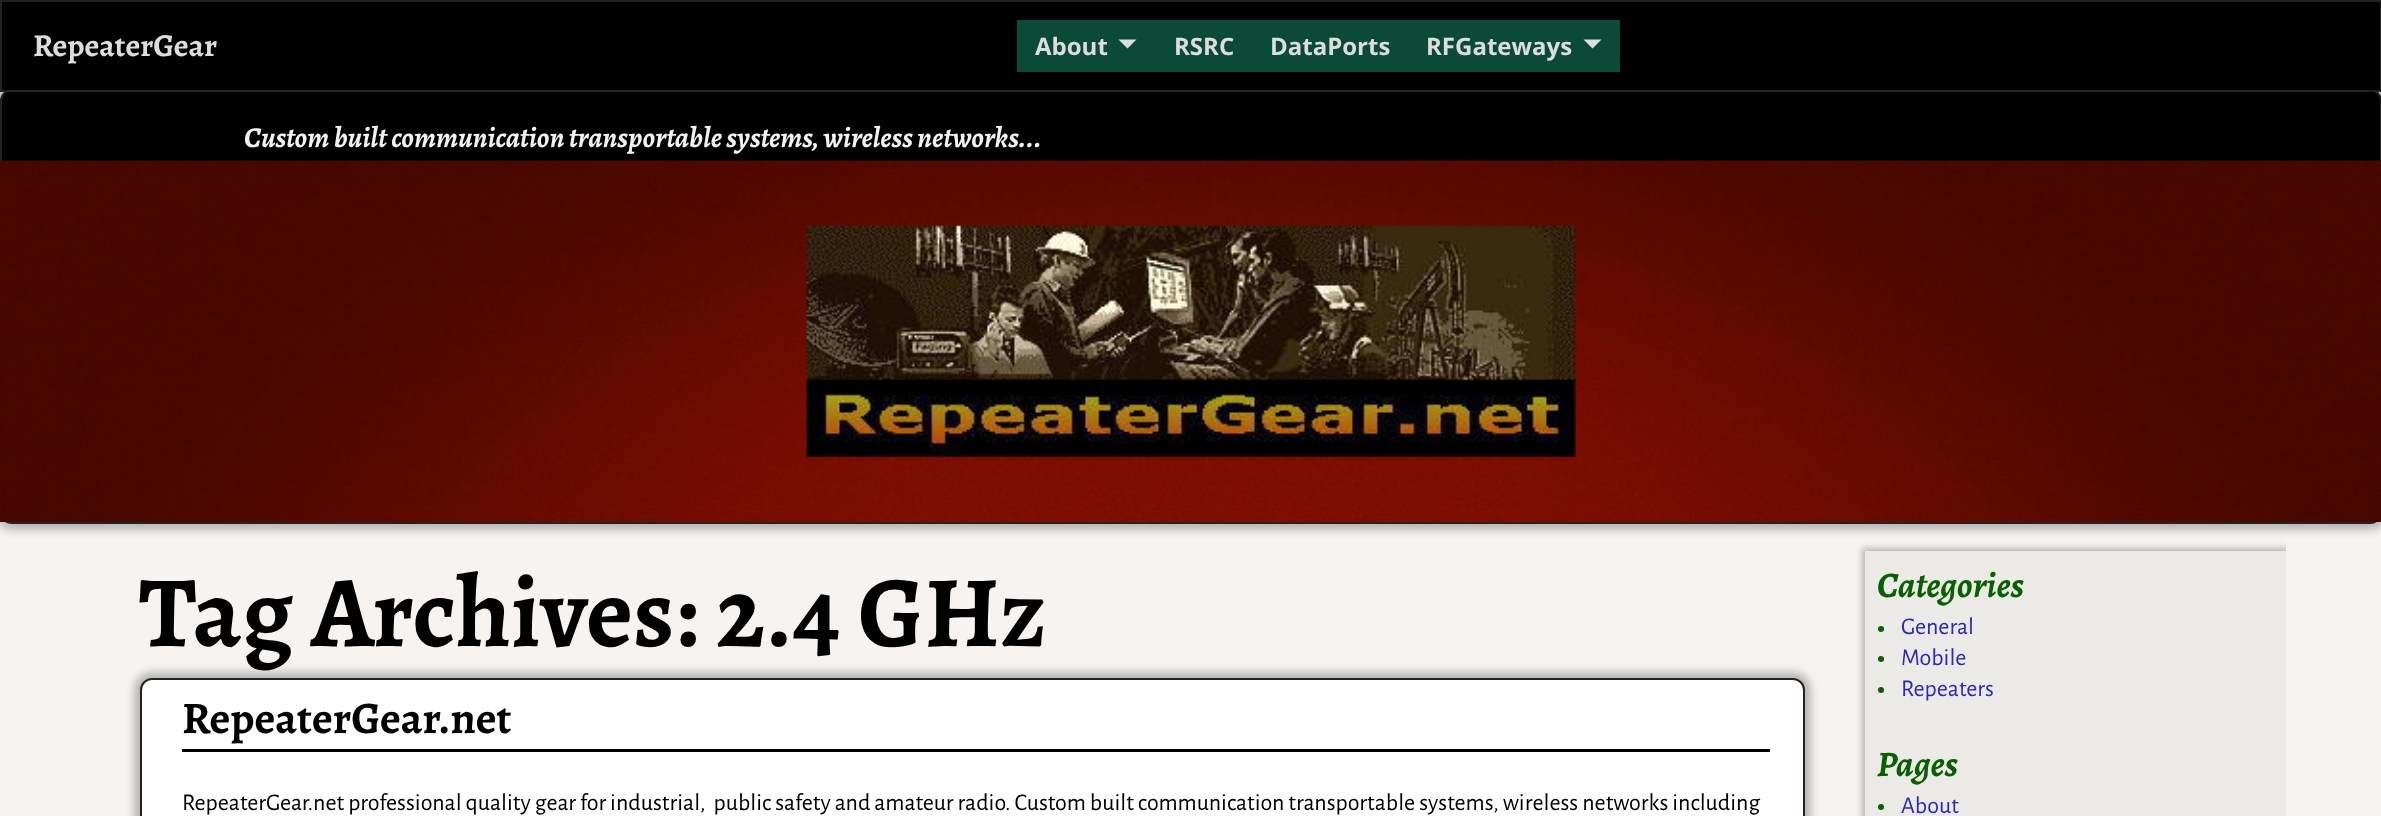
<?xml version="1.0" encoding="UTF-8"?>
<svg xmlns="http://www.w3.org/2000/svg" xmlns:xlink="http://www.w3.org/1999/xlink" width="2381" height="816">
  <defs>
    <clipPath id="clip1"><rect x="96" y="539" width="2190" height="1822" /></clipPath>
  </defs>
  <rect width="100%" height="100%" fill="#f6f3f0" />
  <rect x="-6" y="83" width="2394" height="447" rx="18" fill="#000000" fill-opacity="0.25" filter="blur(4.5px)" />
  <rect x="1" y="90" width="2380" height="433" rx="11" fill="#000000" stroke="#222222" stroke-width="2" />
  <rect x="1" y="1" width="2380" height="90" fill="#000000" stroke="#222222" stroke-width="2" />
  <rect x="1017" y="20" width="603" height="52" fill="#0c4a38" />
  <path d="M 1118.5 39.5 h 18 l -9 9 z" fill="#dddddd" />
  <path d="M 1583.5 39.5 h 18 l -9 9 z" fill="#dddddd" />
  <image x="0" y="160" width="2381" height="362" xlink:href="image1.png" />
  <rect x="134" y="672" width="1677" height="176" rx="18" fill="#000000" fill-opacity="0.25" filter="blur(4.5px)" />
  <rect x="141" y="679" width="1663" height="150" rx="11" fill="#ffffff" stroke="#222222" stroke-width="2" />
  <rect x="182" y="749" width="1588" height="3" fill="#000000" />
  <g clip-path="url(#clip1)">
    <rect x="1862" y="548" width="427" height="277" fill="#000000" fill-opacity="0.25" filter="blur(3px)" />
  </g>
  <rect x="1865" y="551" width="421" height="265" fill="#eceae7" />
  <circle cx="1881" cy="629" r="3" fill="#086000" />
  <circle cx="1881" cy="659" r="3" fill="#086000" />
  <circle cx="1881" cy="690" r="3" fill="#086000" />
  <circle cx="1881" cy="807" r="3" fill="#086000" />
  <text x="33" y="56" style="font-family: Alegreya; font-size: 32px; font-weight: bold; fill: #dddddd">RepeaterGear</text>
  <text x="1035" y="55" style="font-family: Open Sans; font-size: 24px; font-weight: bold; fill: #dddddd">About</text>
  <text x="1174" y="55" style="font-family: Open Sans; font-size: 24px; font-weight: bold; fill: #dddddd">RSRC</text>
  <text x="1270" y="55" style="font-family: Open Sans; font-size: 24px; font-weight: bold; fill: #dddddd">DataPorts</text>
  <text x="1426" y="55" style="font-family: Open Sans; font-size: 24px; font-weight: bold; fill: #dddddd">RFGateways</text>
  <text x="244" y="147" style="font-family: Alegreya; font-size: 28.8px; font-weight: bold; font-style: italic; fill: #f2f2f2">Custom built communication transportable systems, wireless networks...</text>
  <text x="139" y="646" style="font-family: Alegreya; font-size: 101.25px; font-weight: bold; fill: #000000">Tag Archives: 2.4 GHz</text>
  <text x="182" y="733" style="font-family: Alegreya; font-size: 45px; font-weight: bold; fill: #000000">RepeaterGear.net</text>
  <text x="182" y="810" style="font-family: Alegreya Sans; font-size: 24px; fill: #000000" xml:space="preserve">RepeaterGear.net professional quality gear for industrial,  public safety and amateur radio. Custom built communication transportable systems, wireless networks including</text>
  <text x="1877" y="597" style="font-family: Alegreya; font-size: 36px; font-weight: bold; font-style: italic; fill: #086000">Categories</text>
  <text x="1901" y="634" style="font-family: Alegreya Sans; font-size: 24px; fill: #2a2ab8">General</text>
  <text x="1901" y="665" style="font-family: Alegreya Sans; font-size: 24px; fill: #2a2ab8">Mobile</text>
  <text x="1901" y="696" style="font-family: Alegreya Sans; font-size: 24px; fill: #2a2ab8">Repeaters</text>
  <text x="1877" y="776" style="font-family: Alegreya; font-size: 36px; font-weight: bold; font-style: italic; fill: #086000">Pages</text>
  <text x="1901" y="813" style="font-family: Alegreya Sans; font-size: 24px; fill: #2a2ab8">About</text>
</svg>
